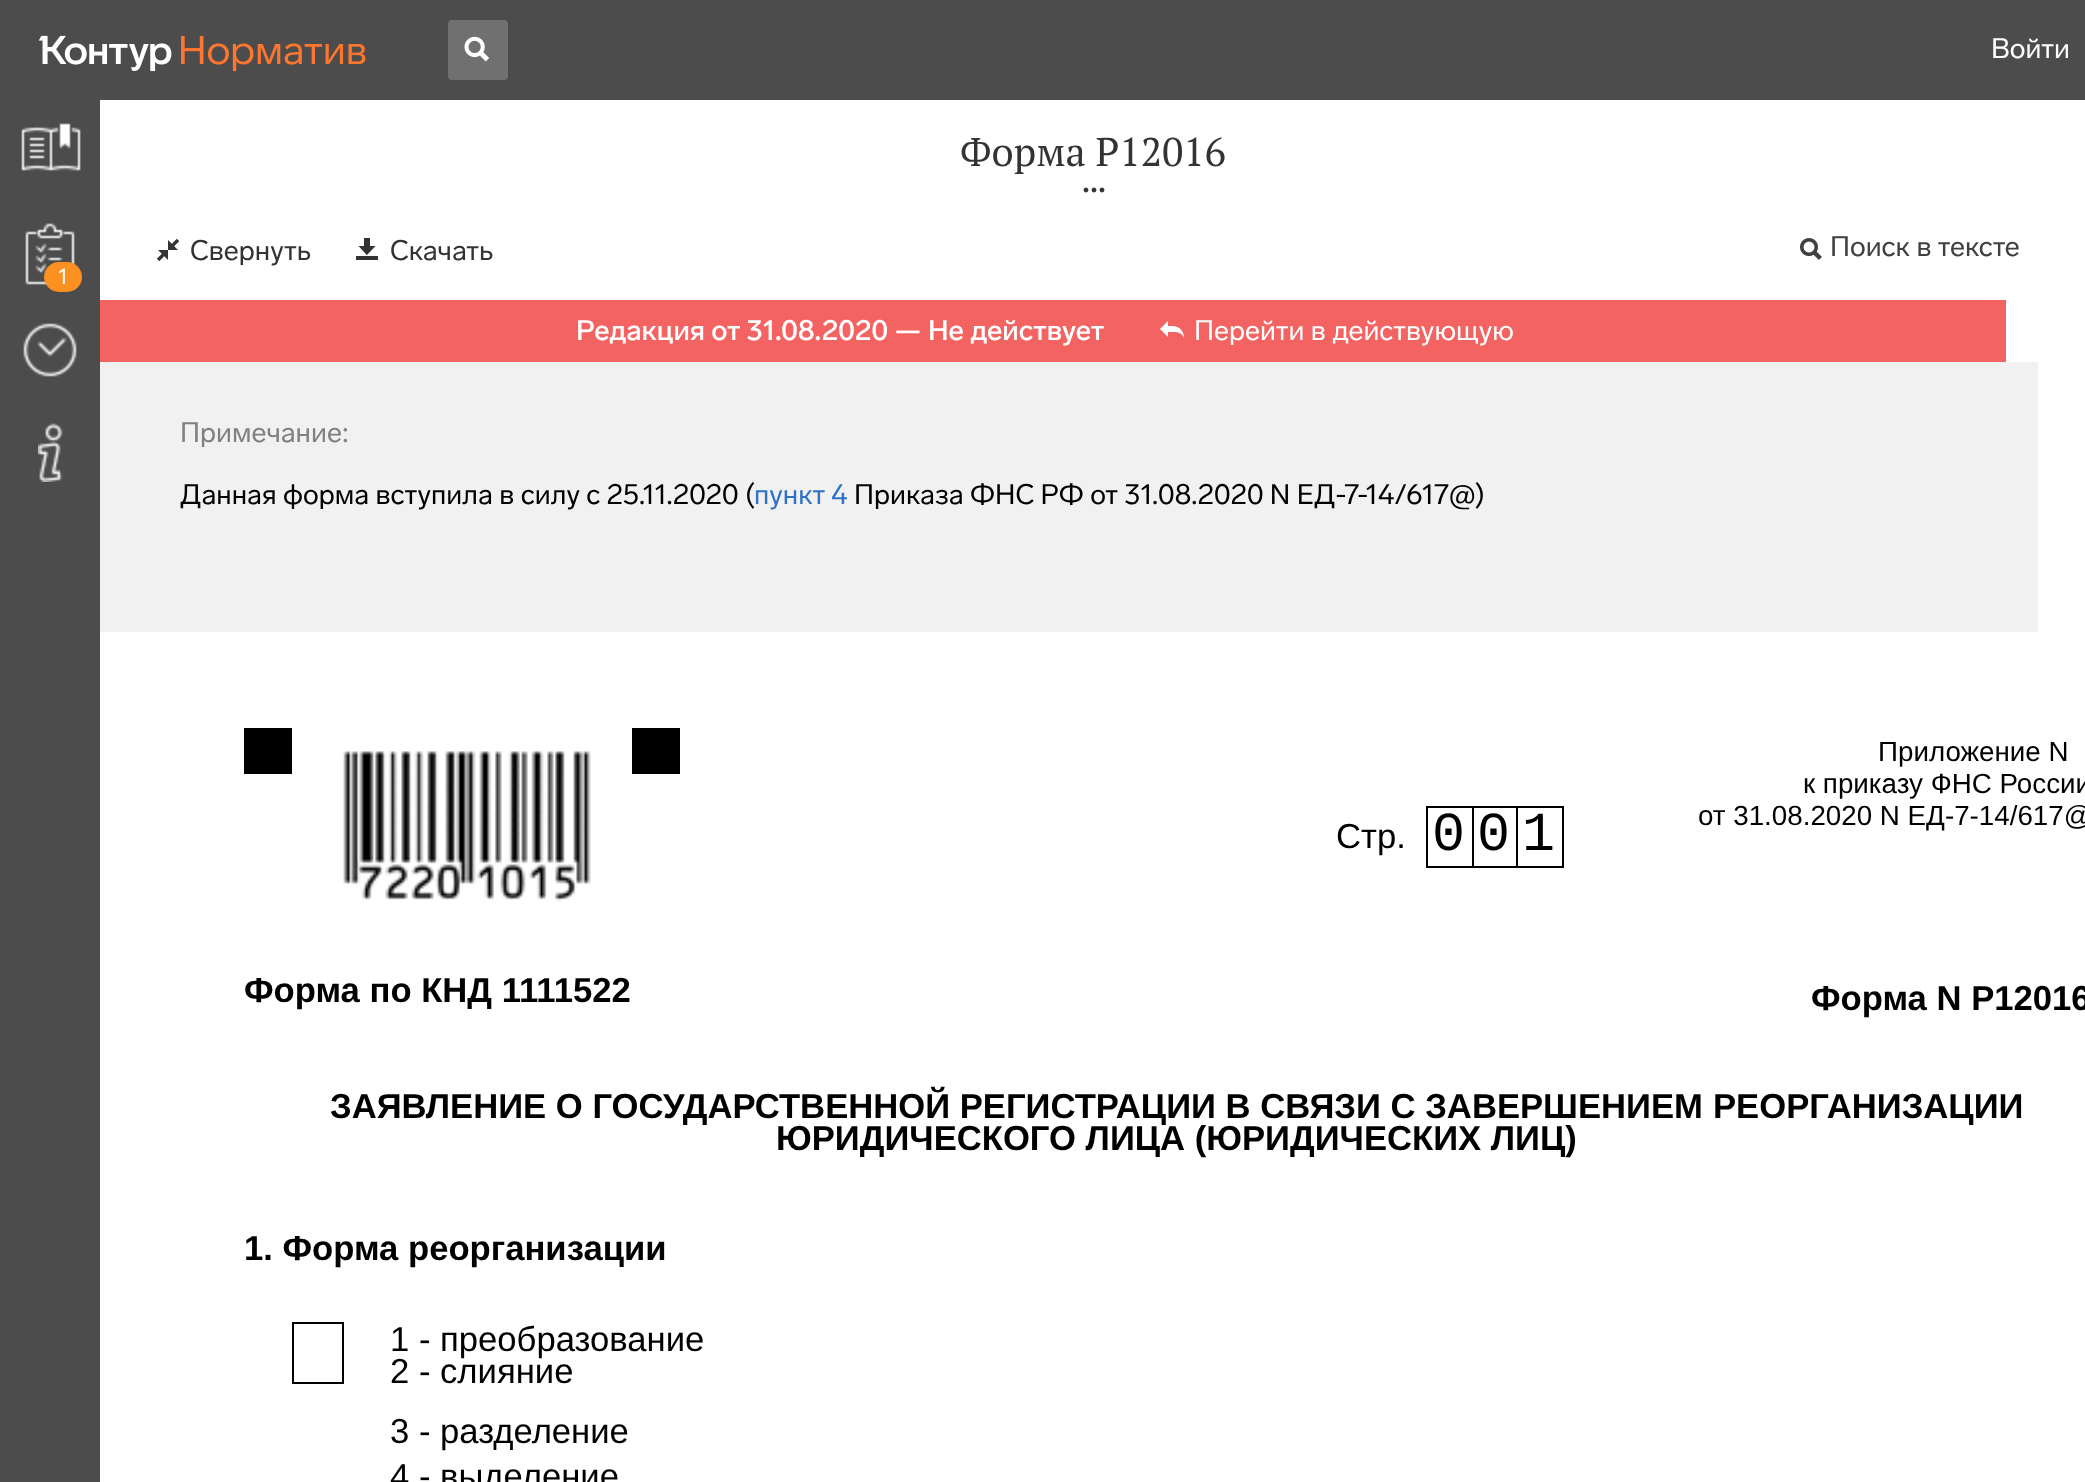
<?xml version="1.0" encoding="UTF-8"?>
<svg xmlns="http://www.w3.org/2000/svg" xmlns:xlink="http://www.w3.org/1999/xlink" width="2085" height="1482">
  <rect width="100%" height="100%" fill="#ffffff" />
  <rect width="2085" height="100" fill="#4c4c4c" />
  <image x="38" y="35" width="134" height="37" xlink:href="image1.png" />
  <image x="181" y="35" width="185" height="37" xlink:href="image2.png" />
  <rect x="448" y="20" width="60" height="60" rx="4" fill="#707070" />
  <image x="464" y="36" width="25" height="26" xlink:href="image3.png" />
  <rect y="100" width="100" height="1382" fill="#4c4c4c" />
  <image x="21" y="123" width="60" height="49" xlink:href="image4.png" />
  <image x="25" y="223" width="50" height="62" xlink:href="image5.png" />
  <rect x="44" y="262" width="38" height="30" rx="15" fill="#fc9021" />
  <image x="23" y="323" width="54" height="54" xlink:href="image6.png" />
  <image x="38" y="423" width="25" height="59" xlink:href="image7.png" />
  <image x="1083" y="187" width="22" height="6" xlink:href="image8.png" />
  <image x="156" y="238" width="24" height="24" xlink:href="image9.png" />
  <image x="356" y="238" width="22" height="22" xlink:href="image10.png" />
  <image x="1800" y="238" width="22" height="22" xlink:href="image11.png" />
  <rect x="100" y="300" width="1906" height="62" fill="#f26361" />
  <image x="1160" y="321" width="24" height="17" xlink:href="image12.png" />
  <rect x="100" y="362" width="1938" height="270" fill="#f1f1f1" />
  <rect x="1427" y="807" width="46" height="60" fill="none" stroke="#000000" stroke-width="2" />
  <rect x="1473" y="807" width="44" height="60" fill="none" stroke="#000000" stroke-width="2" />
  <rect x="1517" y="807" width="46" height="60" fill="none" stroke="#000000" stroke-width="2" />
  <rect x="244" y="728" width="48" height="46" fill="#000000" />
  <image x="343" y="751" width="248" height="151" xlink:href="image13.png" />
  <rect x="632" y="728" width="48" height="46" fill="#000000" />
  <rect x="293" y="1323" width="50" height="60" fill="none" stroke="#000000" stroke-width="2" />
  <text x="1991" y="58" style="font-family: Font; font-size: 28px; fill: #ffffff">Войти</text>
  <text x="58" y="284" style="font-family: Font; font-size: 22px; fill: #ffffff">1</text>
  <text x="960" y="166" style="font-family: PT Serif; font-size: 40px; fill: #333333">Форма Р12016</text>
  <text x="190" y="260" style="font-family: Font; font-size: 28px; fill: #333333">Свернуть</text>
  <text x="390" y="260" style="font-family: Font; font-size: 28px; fill: #333333">Скачать</text>
  <text x="1830" y="256" style="font-family: Font; font-size: 28px; fill: #404040">Поиск в тексте</text>
  <text x="576" y="340" style="font-family: Font; font-size: 28px; font-weight: 500; fill: #ffffff">Редакция от 31.08.2020 — Не действует</text>
  <text x="1194" y="340" style="font-family: Font; font-size: 28px; fill: #ffffff">Перейти в действующую</text>
  <text x="180" y="442" style="font-family: Font; font-size: 28px; fill: #808080">Примечание:</text>
  <text x="180" y="504" style="font-family: Font; font-size: 28px; fill: #000000">Данная форма вступила в силу с 25.11.2020 (</text>
  <text x="754" y="504" style="font-family: Font; font-size: 28px; fill: #3072c4">пункт 4</text>
  <text x="854" y="504" style="font-family: Font; font-size: 28px; fill: #000000">Приказа ФНС РФ от 31.08.2020 N ЕД-7-14/617@)</text>
  <text x="1336" y="848" style="font-family: Liberation Sans; font-size: 34.65px; fill: #000000">Стр.</text>
  <text x="1432" y="850" style="font-family: Liberation Mono; font-size: 55px; fill: #000000">0</text>
  <text x="1477" y="850" style="font-family: Liberation Mono; font-size: 55px; fill: #000000">0</text>
  <text x="1522" y="850" style="font-family: Liberation Mono; font-size: 55px; fill: #000000">1</text>
  <text x="1878" y="761" style="font-family: Liberation Sans; font-size: 27.75px; fill: #000000">Приложение N</text>
  <text x="1803" y="793" style="font-family: Liberation Sans; font-size: 27.75px; fill: #000000">к приказу ФНС России</text>
  <text x="1698" y="825" style="font-family: Liberation Sans; font-size: 27.75px; fill: #000000">от 31.08.2020 N ЕД-7-14/617@</text>
  <text x="244" y="1002" style="font-family: Liberation Sans; font-size: 34.65px; font-weight: bold; fill: #000000">Форма по КНД 1111522</text>
  <text x="1811" y="1010" style="font-family: Liberation Sans; font-size: 34.65px; font-weight: bold; fill: #000000">Форма N Р12016</text>
  <text x="330" y="1118" style="font-family: Liberation Sans; font-size: 34.65px; font-weight: bold; fill: #000000">ЗАЯВЛЕНИЕ О ГОСУДАРСТВЕННОЙ РЕГИСТРАЦИИ В СВЯЗИ С ЗАВЕРШЕНИЕМ</text>
  <text x="1713" y="1118" style="font-family: Liberation Sans; font-size: 34.65px; font-weight: bold; fill: #000000">РЕОРГАНИЗАЦИИ</text>
  <text x="776" y="1150" style="font-family: Liberation Sans; font-size: 34.65px; font-weight: bold; fill: #000000">ЮРИДИЧЕСКОГО ЛИЦА (ЮРИДИЧЕСКИХ ЛИЦ)</text>
  <text x="244" y="1260" style="font-family: Liberation Sans; font-size: 34.65px; font-weight: bold; fill: #000000">1. Форма реорганизации</text>
  <text x="390" y="1351" style="font-family: Liberation Sans; font-size: 34.65px; fill: #000000">1 - преобразование</text>
  <text x="390" y="1383" style="font-family: Liberation Sans; font-size: 34.65px; fill: #000000">2 - слияние</text>
  <text x="390" y="1443" style="font-family: Liberation Sans; font-size: 34.65px; fill: #000000">3 - разделение</text>
  <text x="390" y="1488" style="font-family: Liberation Sans; font-size: 34.65px; fill: #000000">4 - выделение</text>
</svg>
